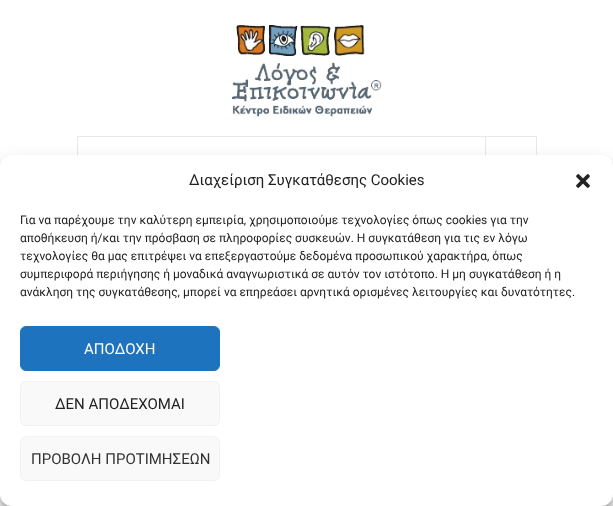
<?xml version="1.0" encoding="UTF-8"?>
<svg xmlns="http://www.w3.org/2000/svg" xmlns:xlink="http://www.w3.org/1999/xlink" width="613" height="506">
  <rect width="100%" height="100%" fill="#ffffff" />
  <image x="232" y="25" width="150" height="92" xlink:href="image1.png" />
  <rect x="77.5" y="136.5" width="459" height="42" fill="none" stroke="#e8e8e8" />
  <rect x="485" y="137" width="1" height="18" fill="#e8e8e8" />
  <rect y="161" width="613" height="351" rx="12" fill="#000000" fill-opacity="0.23" filter="blur(3px)" />
  <rect y="165" width="613" height="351" rx="12" fill="#000000" fill-opacity="0.19" filter="blur(10px)" />
  <rect y="155" width="613" height="351" rx="12" fill="#ffffff" />
  <image x="576" y="174" width="14" height="14" xlink:href="image2.png" />
  <rect x="20.5" y="326.5" width="199" height="44" rx="5.5" fill="#1e73be" stroke="#1e73be" />
  <rect x="20.5" y="381.5" width="199" height="44" rx="5.5" fill="#f9f9f9" stroke="#f2f2f2" />
  <rect x="20.5" y="436.5" width="199" height="44" rx="5.5" fill="#f9f9f9" stroke="#f2f2f2" />
  <text x="189" y="185" style="font-family: Roboto; font-size: 15px; fill: #222222">Διαχείριση Συγκατάθεσης Cookies</text>
  <text x="20" y="224" style="font-family: Roboto; font-size: 12px; fill: #222222">Για να παρέχουμε την καλύτερη εμπειρία, χρησιμοποιούμε τεχνολογίες όπως cookies για την</text>
  <text x="20" y="242" style="font-family: Roboto; font-size: 12px; fill: #222222">αποθήκευση ή/και την πρόσβαση σε πληροφορίες συσκευών. Η συγκατάθεση για τις εν λόγω</text>
  <text x="20" y="260" style="font-family: Roboto; font-size: 12px; fill: #222222">τεχνολογίες θα μας επιτρέψει να επεξεργαστούμε δεδομένα προσωπικού χαρακτήρα, όπως</text>
  <text x="20" y="278" style="font-family: Roboto; font-size: 12px; fill: #222222">συμπεριφορά περιήγησης ή μοναδικά αναγνωριστικά σε αυτόν τον ιστότοπο. Η μη συγκατάθεση ή η</text>
  <text x="20" y="296" style="font-family: Roboto; font-size: 12px; fill: #222222">ανάκληση της συγκατάθεσης, μπορεί να επηρεάσει αρνητικά ορισμένες λειτουργίες και δυνατότητες.</text>
  <text x="84" y="354" style="font-family: Roboto; font-size: 15px; fill: #ffffff">ΑΠΟΔΟΧΗ</text>
  <text x="55" y="409" style="font-family: Roboto; font-size: 15px; fill: #222222">ΔΕΝ ΑΠΟΔΕΧΟΜΑΙ</text>
  <text x="31" y="464" style="font-family: Roboto; font-size: 15px; fill: #333333">ΠΡΟΒΟΛΗ ΠΡΟΤΙΜΗΣΕΩΝ</text>
</svg>
